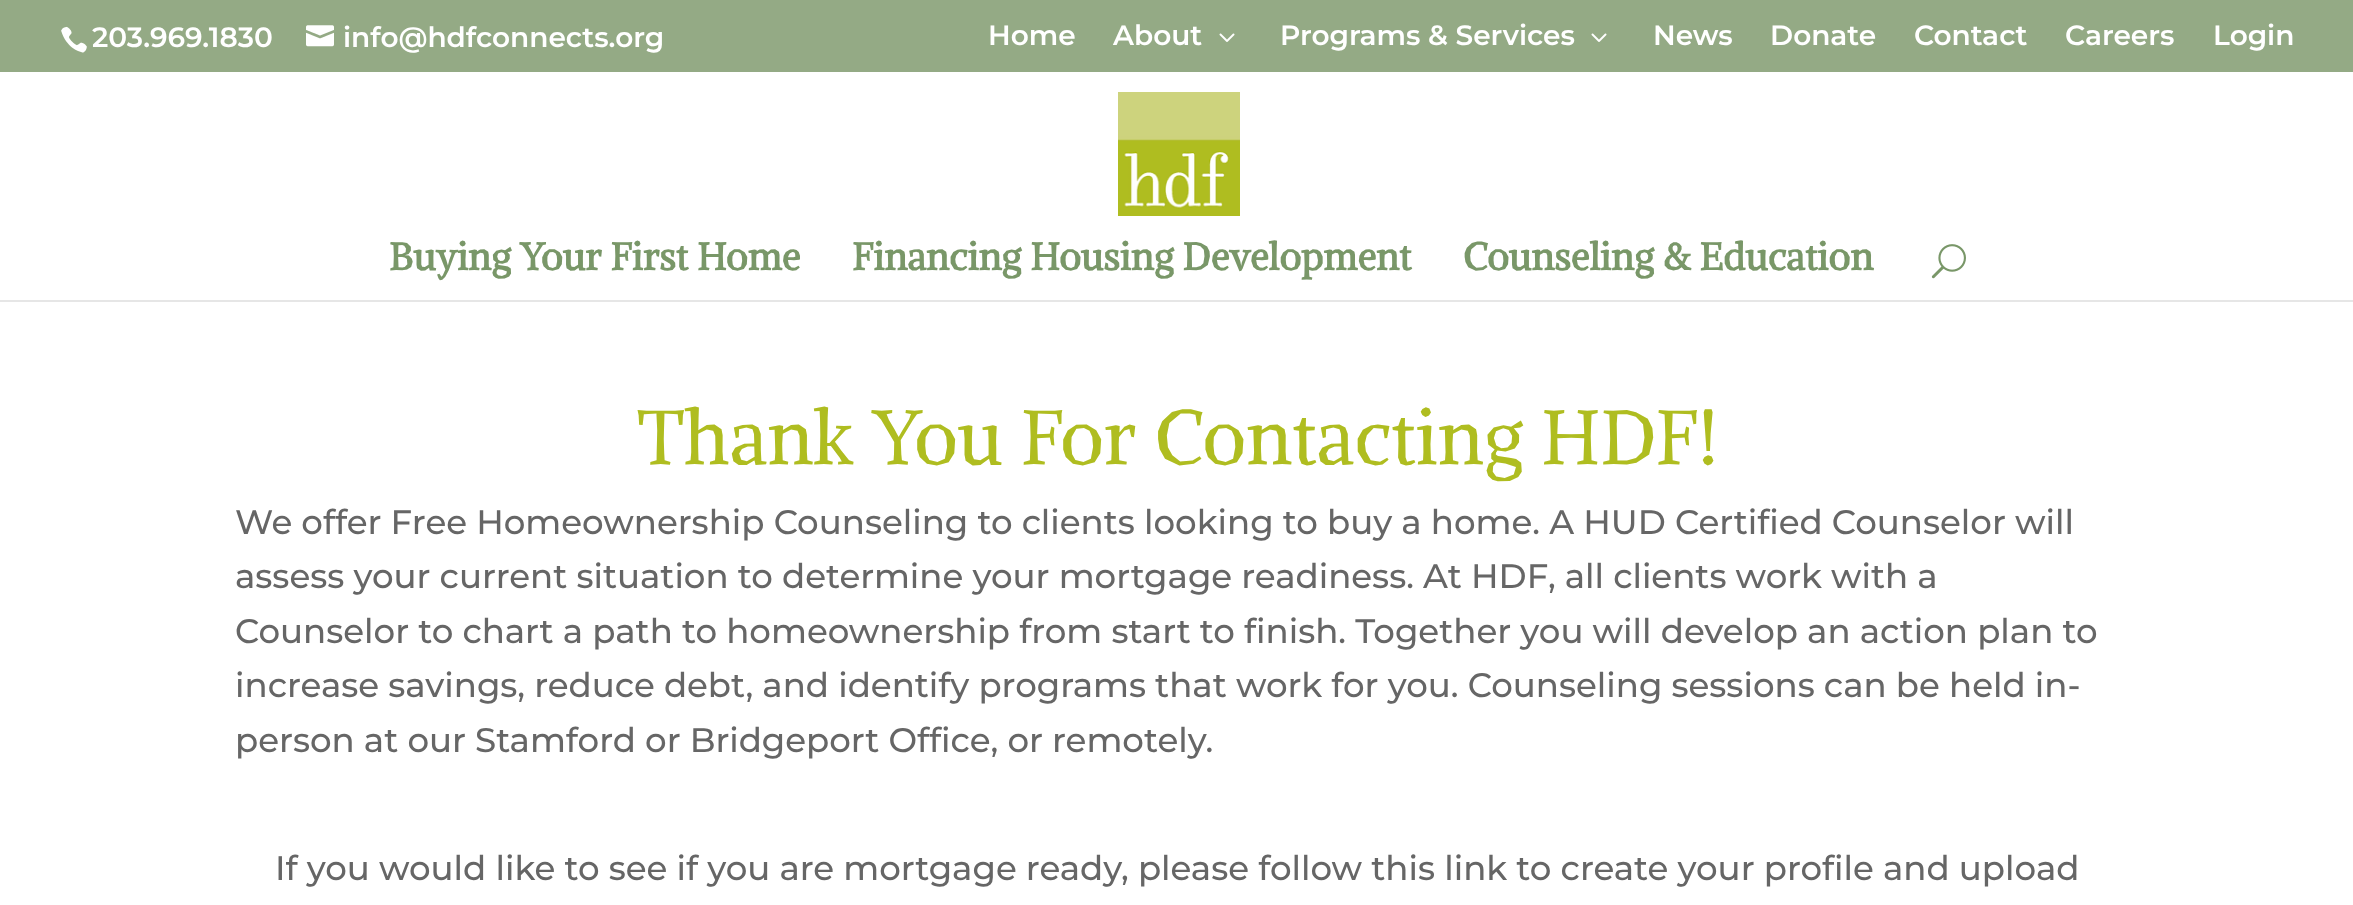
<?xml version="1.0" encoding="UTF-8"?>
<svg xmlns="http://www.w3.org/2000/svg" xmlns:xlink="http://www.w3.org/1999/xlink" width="2353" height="905">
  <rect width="100%" height="100%" fill="#ffffff" />
  <rect width="2353" height="72" fill="#94aa85" />
  <image x="61" y="26" width="26" height="27" xlink:href="image1.png" />
  <image x="306" y="25" width="28" height="22" xlink:href="image2.png" />
  <image x="1219" y="33" width="16" height="9" xlink:href="image3.png" />
  <image x="1591" y="33" width="16" height="9" xlink:href="image3.png" />
  <rect y="300" width="2353" height="2" fill="#e6e6e6" />
  <image x="1118" y="92" width="122" height="124" xlink:href="image4.png" />
  <image x="1931" y="244" width="35" height="35" xlink:href="image5.png" />
  <text x="92" y="47" style="font-family: 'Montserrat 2'; font-size: 28px; font-weight: 100; fill: #ffffff">203.969.1830</text>
  <text x="343" y="47" style="font-family: 'Montserrat 2'; font-size: 28px; font-weight: 100; fill: #ffffff">info@hdfconnects.org</text>
  <text x="988" y="45" style="font-family: 'Montserrat 2'; font-size: 28px; font-weight: 100; fill: #ffffff">Home</text>
  <text x="1113" y="45" style="font-family: 'Montserrat 2'; font-size: 28px; font-weight: 100; fill: #ffffff">About</text>
  <text x="1280" y="45" style="font-family: 'Montserrat 2'; font-size: 28px; font-weight: 100; fill: #ffffff">Programs &amp; Services</text>
  <text x="1653" y="45" style="font-family: 'Montserrat 2'; font-size: 28px; font-weight: 100; fill: #ffffff">News</text>
  <text x="1770" y="45" style="font-family: 'Montserrat 2'; font-size: 28px; font-weight: 100; fill: #ffffff">Donate</text>
  <text x="1914" y="45" style="font-family: 'Montserrat 2'; font-size: 28px; font-weight: 100; fill: #ffffff">Contact</text>
  <text x="2065" y="45" style="font-family: 'Montserrat 2'; font-size: 28px; font-weight: 100; fill: #ffffff">Careers</text>
  <text x="2213" y="45" style="font-family: 'Montserrat 2'; font-size: 28px; font-weight: 100; fill: #ffffff">Login</text>
  <text x="389" y="270" style="font-family: Alike Angular; font-size: 38px; font-weight: bold; fill: #799768">Buying Your First Home</text>
  <text x="852" y="270" style="font-family: Alike Angular; font-size: 38px; font-weight: bold; fill: #799768">Financing Housing Development</text>
  <text x="1463" y="270" style="font-family: Alike Angular; font-size: 38px; font-weight: bold; fill: #799768">Counseling &amp; Education</text>
  <text x="637" y="464" style="font-family: Alike Angular; font-size: 76px; fill: #afbd20">Thank You For Contacting HDF!</text>
  <text x="235" y="534" style="font-family: Montserrat; font-size: 34px; font-weight: 100; fill: #666666">We offer Free Homeownership Counseling to clients looking to buy a home. A HUD Certified Counselor will</text>
  <text x="235" y="588" style="font-family: Montserrat; font-size: 34px; font-weight: 100; fill: #666666">assess your current situation to determine your mortgage readiness. At HDF, all clients work with a</text>
  <text x="235" y="643" style="font-family: Montserrat; font-size: 34px; font-weight: 100; fill: #666666">Counselor to chart a path to homeownership from start to finish. Together you will develop an action plan to</text>
  <text x="235" y="697" style="font-family: Montserrat; font-size: 34px; font-weight: 100; fill: #666666">increase savings, reduce debt, and identify programs that work for you. Counseling sessions can be held in-</text>
  <text x="235" y="752" style="font-family: Montserrat; font-size: 34px; font-weight: 100; fill: #666666">person at our Stamford or Bridgeport Office, or remotely.</text>
  <text x="275" y="880" style="font-family: Montserrat; font-size: 34px; font-weight: 100; fill: #666666">If you would like to see if you are mortgage ready, please follow this link to create your profile and upload</text>
</svg>
